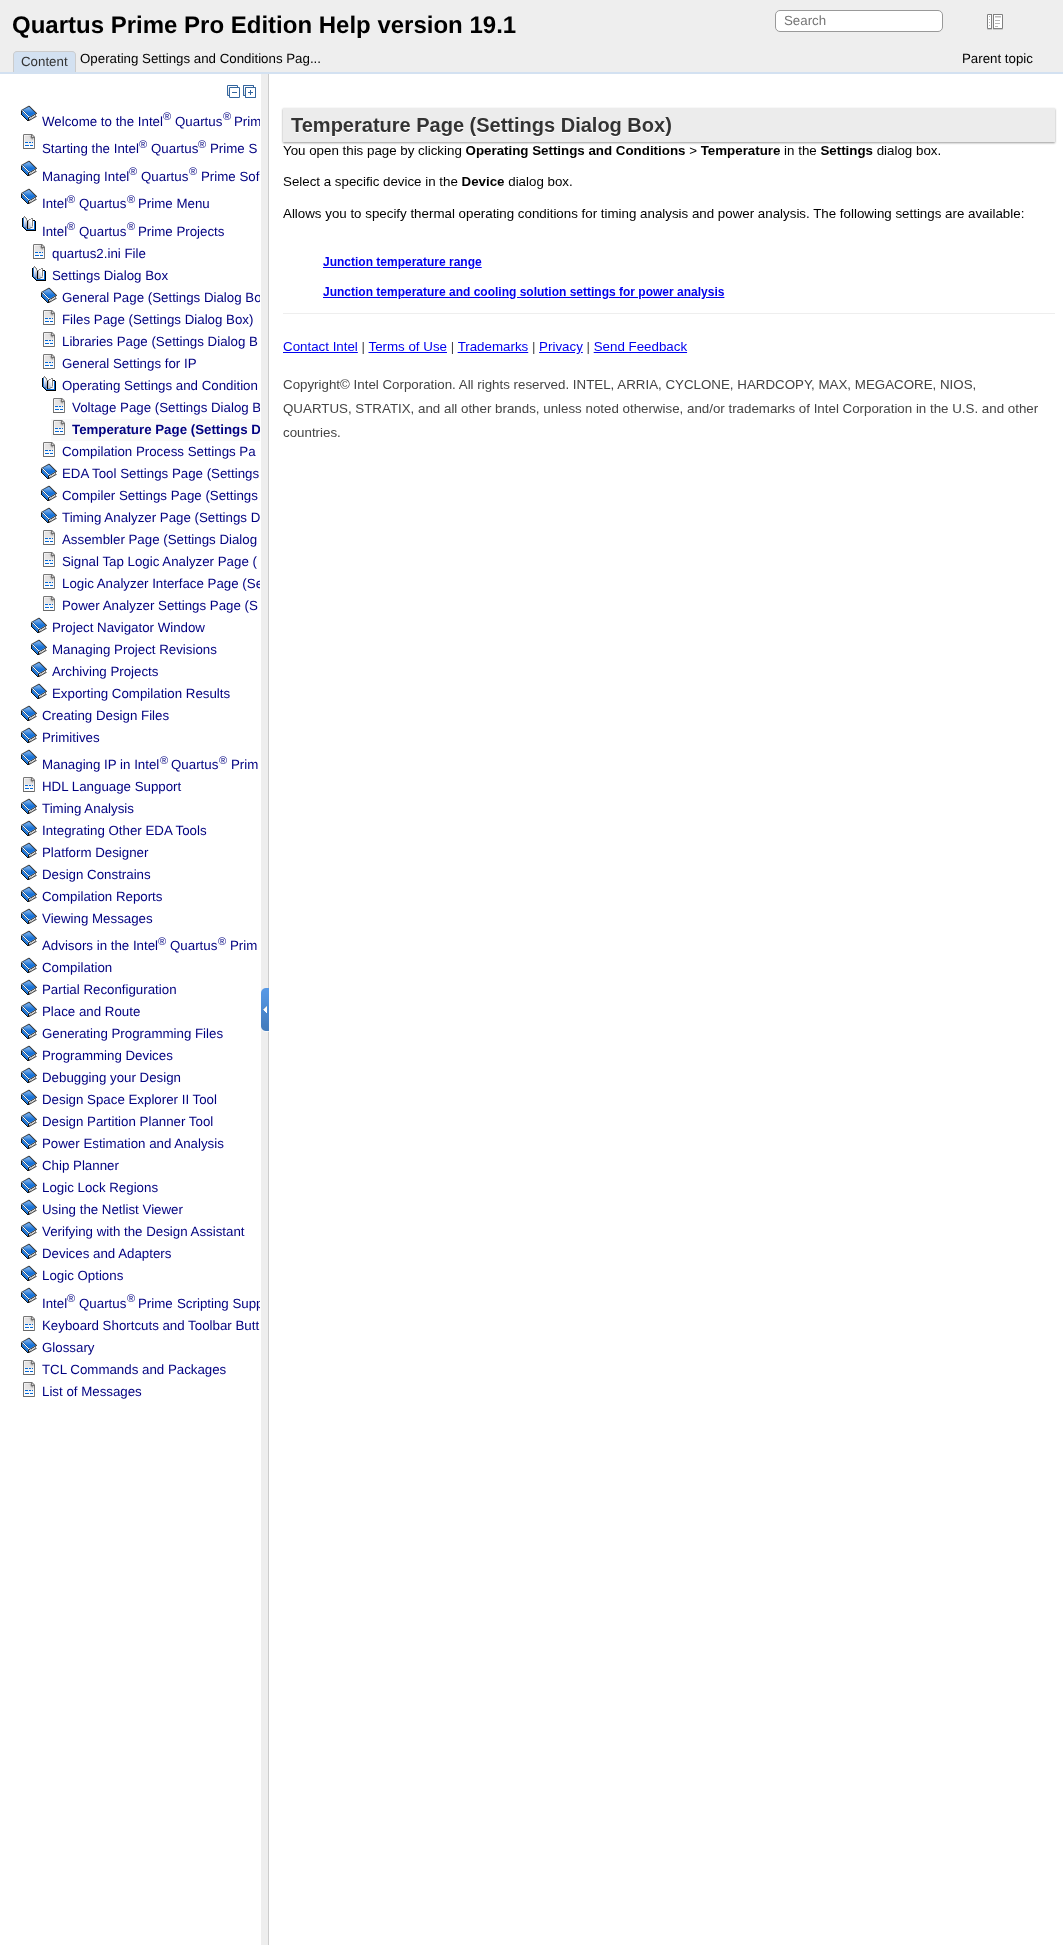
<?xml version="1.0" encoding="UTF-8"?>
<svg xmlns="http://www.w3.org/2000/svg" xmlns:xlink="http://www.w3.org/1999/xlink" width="1063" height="1952">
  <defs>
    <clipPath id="clip1"><rect x="1" y="75" width="259" height="1871" /></clipPath>
  </defs>
  <rect width="100%" height="100%" fill="#ffffff" />
  <rect width="1063" height="72" fill="#eeeeee" />
  <rect x="775.5" y="10.5" width="167" height="21" rx="4.5" fill="#ffffff" stroke="#999999" />
  <image x="987" y="14" width="16" height="16" xlink:href="image1.png" />
  <path d="M 17 51 h 55 c 2 0 4 2 4 4 v 17 h -63 v -17 c 0 -2 2 -4 4 -4 z" fill="#d3e1f1" />
  <path d="M 17 51 h 55 c 2 0 4 2 4 4 v 17 h -63 v -17 c 0 -2 2 -4 4 -4 z m 0 1 h 55 c 2 0 3 1 3 3 v 17 h -61 v -17 c 0 -2 1 -3 3 -3 z" fill="#cccccc" fill-rule="evenodd" />
  <rect y="72" width="1063" height="2" fill="#d3e1f1" />
  <image x="227" y="85" width="13" height="13" xlink:href="image2.png" />
  <image x="243" y="85" width="13" height="13" xlink:href="image3.png" />
  <image x="21" y="105" width="16" height="16" xlink:href="image4.png" />
  <image x="23" y="134" width="12" height="15" xlink:href="image5.png" />
  <image x="21" y="160" width="16" height="16" xlink:href="image4.png" />
  <image x="21" y="188" width="16" height="16" xlink:href="image4.png" />
  <image x="22" y="216" width="14" height="15" xlink:href="image6.png" />
  <image x="33" y="244" width="12" height="15" xlink:href="image5.png" />
  <image x="32" y="266" width="14" height="15" xlink:href="image6.png" />
  <image x="41" y="287" width="16" height="16" xlink:href="image4.png" />
  <image x="43" y="310" width="12" height="15" xlink:href="image5.png" />
  <image x="43" y="332" width="12" height="15" xlink:href="image5.png" />
  <image x="43" y="354" width="12" height="15" xlink:href="image5.png" />
  <image x="42" y="376" width="14" height="15" xlink:href="image6.png" />
  <image x="53" y="398" width="12" height="15" xlink:href="image5.png" />
  <rect x="51" y="419" width="209" height="22" fill="#f9f9f9" />
  <image x="53" y="420" width="12" height="15" xlink:href="image7.png" />
  <image x="43" y="442" width="12" height="15" xlink:href="image5.png" />
  <image x="41" y="463" width="16" height="16" xlink:href="image4.png" />
  <image x="41" y="485" width="16" height="16" xlink:href="image4.png" />
  <image x="41" y="507" width="16" height="16" xlink:href="image4.png" />
  <image x="43" y="530" width="12" height="15" xlink:href="image5.png" />
  <image x="43" y="552" width="12" height="15" xlink:href="image5.png" />
  <image x="43" y="574" width="12" height="15" xlink:href="image5.png" />
  <image x="43" y="596" width="12" height="15" xlink:href="image5.png" />
  <image x="31" y="617" width="16" height="16" xlink:href="image4.png" />
  <image x="31" y="639" width="16" height="16" xlink:href="image4.png" />
  <image x="31" y="661" width="16" height="16" xlink:href="image4.png" />
  <image x="31" y="683" width="16" height="16" xlink:href="image4.png" />
  <image x="21" y="705" width="16" height="16" xlink:href="image4.png" />
  <image x="21" y="727" width="16" height="16" xlink:href="image4.png" />
  <image x="21" y="749" width="16" height="16" xlink:href="image4.png" />
  <image x="23" y="777" width="12" height="15" xlink:href="image5.png" />
  <image x="21" y="798" width="16" height="16" xlink:href="image4.png" />
  <image x="21" y="820" width="16" height="16" xlink:href="image4.png" />
  <image x="21" y="842" width="16" height="16" xlink:href="image4.png" />
  <image x="21" y="864" width="16" height="16" xlink:href="image4.png" />
  <image x="21" y="886" width="16" height="16" xlink:href="image4.png" />
  <image x="21" y="908" width="16" height="16" xlink:href="image4.png" />
  <image x="21" y="930" width="16" height="16" xlink:href="image4.png" />
  <image x="21" y="957" width="16" height="16" xlink:href="image4.png" />
  <image x="21" y="979" width="16" height="16" xlink:href="image4.png" />
  <image x="21" y="1001" width="16" height="16" xlink:href="image4.png" />
  <image x="21" y="1023" width="16" height="16" xlink:href="image4.png" />
  <image x="21" y="1045" width="16" height="16" xlink:href="image4.png" />
  <image x="21" y="1067" width="16" height="16" xlink:href="image4.png" />
  <image x="21" y="1089" width="16" height="16" xlink:href="image4.png" />
  <image x="21" y="1111" width="16" height="16" xlink:href="image4.png" />
  <image x="21" y="1133" width="16" height="16" xlink:href="image4.png" />
  <image x="21" y="1155" width="16" height="16" xlink:href="image4.png" />
  <image x="21" y="1177" width="16" height="16" xlink:href="image4.png" />
  <image x="21" y="1199" width="16" height="16" xlink:href="image4.png" />
  <image x="21" y="1221" width="16" height="16" xlink:href="image4.png" />
  <image x="21" y="1243" width="16" height="16" xlink:href="image4.png" />
  <image x="21" y="1265" width="16" height="16" xlink:href="image4.png" />
  <image x="21" y="1287" width="16" height="16" xlink:href="image4.png" />
  <image x="23" y="1316" width="12" height="15" xlink:href="image5.png" />
  <image x="21" y="1337" width="16" height="16" xlink:href="image4.png" />
  <image x="23" y="1360" width="12" height="15" xlink:href="image5.png" />
  <image x="23" y="1382" width="12" height="15" xlink:href="image5.png" />
  <rect x="261" y="74" width="7" height="1871" fill="#eeeeee" />
  <rect x="268" y="74" width="1" height="1871" fill="#cccccc" />
  <image x="261" y="988" width="8" height="44" xlink:href="image8.png" />
  <image x="281" y="107" width="776" height="330" xlink:href="image9.png" />
  <text x="12" y="33" style="font-family: Liberation Sans; font-size: 24px; font-weight: bold; fill: #000000">Quartus Prime Pro Edition Help version 19.1</text>
  <text x="784" y="25" style="font-family: Liberation Sans; font-size: 13.3px; fill: #757575">Search</text>
  <text x="21" y="66" style="font-family: Liberation Sans; font-size: 13.3px; fill: #333333">Content</text>
  <text x="80" y="63" style="font-family: Liberation Sans; font-size: 13.3px; fill: #000000">Operating Settings and Conditions Pag...</text>
  <text x="962" y="63" style="font-family: Liberation Sans; font-size: 13.3px; fill: #000000">Parent topic</text>
  <text x="42" y="126" style="font-family: Liberation Sans; font-size: 13.3px; fill: #000080">Welcome to the Intel</text>
  <text x="163" y="120" style="font-family: Liberation Sans; font-size: 11px; fill: #000080">®</text>
  <text x="175" y="126" style="font-family: Liberation Sans; font-size: 13.3px; fill: #000080">Quartus</text>
  <text x="223" y="120" style="font-family: Liberation Sans; font-size: 11px; fill: #000080">®</text>
  <g clip-path="url(#clip1)">
    <text x="234" y="126" style="font-family: Liberation Sans; font-size: 13.3px; fill: #000080">Prim</text>
  </g>
  <text x="42" y="153" style="font-family: Liberation Sans; font-size: 13.3px; fill: #000080">Starting the Intel</text>
  <text x="139" y="148" style="font-family: Liberation Sans; font-size: 11px; fill: #000080">®</text>
  <text x="151" y="153" style="font-family: Liberation Sans; font-size: 13.3px; fill: #000080">Quartus</text>
  <text x="198" y="148" style="font-family: Liberation Sans; font-size: 11px; fill: #000080">®</text>
  <text x="210" y="153" style="font-family: Liberation Sans; font-size: 13.3px; fill: #000080">Prime S</text>
  <text x="42" y="181" style="font-family: Liberation Sans; font-size: 13.3px; fill: #000080">Managing Intel</text>
  <text x="129" y="175" style="font-family: Liberation Sans; font-size: 11px; fill: #000080">®</text>
  <text x="141" y="181" style="font-family: Liberation Sans; font-size: 13.3px; fill: #000080">Quartus</text>
  <text x="189" y="175" style="font-family: Liberation Sans; font-size: 11px; fill: #000080">®</text>
  <text x="201" y="181" style="font-family: Liberation Sans; font-size: 13.3px; fill: #000080">Prime Sof</text>
  <text x="42" y="208" style="font-family: Liberation Sans; font-size: 13.3px; fill: #000080">Intel</text>
  <text x="67" y="203" style="font-family: Liberation Sans; font-size: 11px; fill: #000080">®</text>
  <text x="79" y="208" style="font-family: Liberation Sans; font-size: 13.3px; fill: #000080">Quartus</text>
  <text x="127" y="203" style="font-family: Liberation Sans; font-size: 11px; fill: #000080">®</text>
  <text x="138" y="208" style="font-family: Liberation Sans; font-size: 13.3px; fill: #000080">Prime Menu</text>
  <text x="42" y="236" style="font-family: Liberation Sans; font-size: 13.3px; fill: #000080">Intel</text>
  <text x="67" y="230" style="font-family: Liberation Sans; font-size: 11px; fill: #000080">®</text>
  <text x="79" y="236" style="font-family: Liberation Sans; font-size: 13.3px; fill: #000080">Quartus</text>
  <text x="127" y="230" style="font-family: Liberation Sans; font-size: 11px; fill: #000080">®</text>
  <text x="138" y="236" style="font-family: Liberation Sans; font-size: 13.3px; fill: #000080">Prime Projects</text>
  <text x="52" y="258" style="font-family: Liberation Sans; font-size: 13.3px; fill: #000080">quartus2.ini File</text>
  <text x="52" y="280" style="font-family: Liberation Sans; font-size: 13.3px; fill: #000080">Settings Dialog Box</text>
  <g clip-path="url(#clip1)">
    <text x="62" y="302" style="font-family: Liberation Sans; font-size: 13.3px; fill: #000080">General Page (Settings Dialog Bo</text>
  </g>
  <text x="62" y="324" style="font-family: Liberation Sans; font-size: 13.3px; fill: #000080">Files Page (Settings Dialog Box)</text>
  <text x="62" y="346" style="font-family: Liberation Sans; font-size: 13.3px; fill: #000080">Libraries Page (Settings Dialog B</text>
  <text x="62" y="368" style="font-family: Liberation Sans; font-size: 13.3px; fill: #000080">General Settings for IP</text>
  <text x="62" y="390" style="font-family: Liberation Sans; font-size: 13.3px; fill: #000080">Operating Settings and Condition</text>
  <g clip-path="url(#clip1)">
    <text x="72" y="412" style="font-family: Liberation Sans; font-size: 13.3px; fill: #000080">Voltage Page (Settings Dialog B</text>
    <text x="72" y="434" style="font-family: Liberation Sans; font-size: 13.3px; font-weight: bold; fill: #000080">Temperature Page (Settings D</text>
  </g>
  <text x="62" y="456" style="font-family: Liberation Sans; font-size: 13.3px; fill: #000080">Compilation Process Settings Pa</text>
  <text x="62" y="478" style="font-family: Liberation Sans; font-size: 13.3px; fill: #000080">EDA Tool Settings Page (Settings</text>
  <text x="62" y="500" style="font-family: Liberation Sans; font-size: 13.3px; fill: #000080">Compiler Settings Page (Settings</text>
  <text x="62" y="522" style="font-family: Liberation Sans; font-size: 13.3px; fill: #000080">Timing Analyzer Page (Settings D</text>
  <text x="62" y="544" style="font-family: Liberation Sans; font-size: 13.3px; fill: #000080">Assembler Page (Settings Dialog</text>
  <text x="62" y="566" style="font-family: Liberation Sans; font-size: 13.3px; fill: #000080">Signal Tap Logic Analyzer Page (</text>
  <g clip-path="url(#clip1)">
    <text x="62" y="588" style="font-family: Liberation Sans; font-size: 13.3px; fill: #000080">Logic Analyzer Interface Page (Se</text>
  </g>
  <text x="62" y="610" style="font-family: Liberation Sans; font-size: 13.3px; fill: #000080">Power Analyzer Settings Page (S</text>
  <text x="52" y="632" style="font-family: Liberation Sans; font-size: 13.3px; fill: #000080">Project Navigator Window</text>
  <text x="52" y="654" style="font-family: Liberation Sans; font-size: 13.3px; fill: #000080">Managing Project Revisions</text>
  <text x="52" y="676" style="font-family: Liberation Sans; font-size: 13.3px; fill: #000080">Archiving Projects</text>
  <text x="52" y="698" style="font-family: Liberation Sans; font-size: 13.3px; fill: #000080">Exporting Compilation Results</text>
  <text x="42" y="720" style="font-family: Liberation Sans; font-size: 13.3px; fill: #000080">Creating Design Files</text>
  <text x="42" y="742" style="font-family: Liberation Sans; font-size: 13.3px; fill: #000080">Primitives</text>
  <text x="42" y="769" style="font-family: Liberation Sans; font-size: 13.3px; fill: #000080">Managing IP in Intel</text>
  <text x="160" y="764" style="font-family: Liberation Sans; font-size: 11px; fill: #000080">®</text>
  <text x="171" y="769" style="font-family: Liberation Sans; font-size: 13.3px; fill: #000080">Quartus</text>
  <text x="219" y="764" style="font-family: Liberation Sans; font-size: 11px; fill: #000080">®</text>
  <text x="231" y="769" style="font-family: Liberation Sans; font-size: 13.3px; fill: #000080">Prim</text>
  <text x="42" y="791" style="font-family: Liberation Sans; font-size: 13.3px; fill: #000080">HDL Language Support</text>
  <text x="42" y="813" style="font-family: Liberation Sans; font-size: 13.3px; fill: #000080">Timing Analysis</text>
  <text x="42" y="835" style="font-family: Liberation Sans; font-size: 13.3px; fill: #000080">Integrating Other EDA Tools</text>
  <text x="42" y="857" style="font-family: Liberation Sans; font-size: 13.3px; fill: #000080">Platform Designer</text>
  <text x="42" y="879" style="font-family: Liberation Sans; font-size: 13.3px; fill: #000080">Design Constrains</text>
  <text x="42" y="901" style="font-family: Liberation Sans; font-size: 13.3px; fill: #000080">Compilation Reports</text>
  <text x="42" y="923" style="font-family: Liberation Sans; font-size: 13.3px; fill: #000080">Viewing Messages</text>
  <text x="42" y="950" style="font-family: Liberation Sans; font-size: 13.3px; fill: #000080">Advisors in the Intel</text>
  <text x="158" y="945" style="font-family: Liberation Sans; font-size: 11px; fill: #000080">®</text>
  <text x="170" y="950" style="font-family: Liberation Sans; font-size: 13.3px; fill: #000080">Quartus</text>
  <text x="218" y="945" style="font-family: Liberation Sans; font-size: 11px; fill: #000080">®</text>
  <text x="230" y="950" style="font-family: Liberation Sans; font-size: 13.3px; fill: #000080">Prim</text>
  <text x="42" y="972" style="font-family: Liberation Sans; font-size: 13.3px; fill: #000080">Compilation</text>
  <text x="42" y="994" style="font-family: Liberation Sans; font-size: 13.3px; fill: #000080">Partial Reconfiguration</text>
  <text x="42" y="1016" style="font-family: Liberation Sans; font-size: 13.3px; fill: #000080">Place and Route</text>
  <text x="42" y="1038" style="font-family: Liberation Sans; font-size: 13.3px; fill: #000080">Generating Programming Files</text>
  <text x="42" y="1060" style="font-family: Liberation Sans; font-size: 13.3px; fill: #000080">Programming Devices</text>
  <text x="42" y="1082" style="font-family: Liberation Sans; font-size: 13.3px; fill: #000080">Debugging your Design</text>
  <text x="42" y="1104" style="font-family: Liberation Sans; font-size: 13.3px; fill: #000080">Design Space Explorer II Tool</text>
  <text x="42" y="1126" style="font-family: Liberation Sans; font-size: 13.3px; fill: #000080">Design Partition Planner Tool</text>
  <text x="42" y="1148" style="font-family: Liberation Sans; font-size: 13.3px; fill: #000080">Power Estimation and Analysis</text>
  <text x="42" y="1170" style="font-family: Liberation Sans; font-size: 13.3px; fill: #000080">Chip Planner</text>
  <text x="42" y="1192" style="font-family: Liberation Sans; font-size: 13.3px; fill: #000080">Logic Lock Regions</text>
  <text x="42" y="1214" style="font-family: Liberation Sans; font-size: 13.3px; fill: #000080">Using the Netlist Viewer</text>
  <text x="42" y="1236" style="font-family: Liberation Sans; font-size: 13.3px; fill: #000080">Verifying with the Design Assistant</text>
  <text x="42" y="1258" style="font-family: Liberation Sans; font-size: 13.3px; fill: #000080">Devices and Adapters</text>
  <text x="42" y="1280" style="font-family: Liberation Sans; font-size: 13.3px; fill: #000080">Logic Options</text>
  <text x="42" y="1308" style="font-family: Liberation Sans; font-size: 13.3px; fill: #000080">Intel</text>
  <text x="67" y="1302" style="font-family: Liberation Sans; font-size: 11px; fill: #000080">®</text>
  <text x="79" y="1308" style="font-family: Liberation Sans; font-size: 13.3px; fill: #000080">Quartus</text>
  <text x="127" y="1302" style="font-family: Liberation Sans; font-size: 11px; fill: #000080">®</text>
  <text x="138" y="1308" style="font-family: Liberation Sans; font-size: 13.3px; fill: #000080">Prime</text>
  <g clip-path="url(#clip1)">
    <text x="177" y="1308" style="font-family: Liberation Sans; font-size: 13.3px; fill: #000080">Scripting Supp</text>
  </g>
  <text x="42" y="1330" style="font-family: Liberation Sans; font-size: 13.3px; fill: #000080">Keyboard Shortcuts and Toolbar Butt</text>
  <text x="42" y="1352" style="font-family: Liberation Sans; font-size: 13.3px; fill: #000080">Glossary</text>
  <text x="42" y="1374" style="font-family: Liberation Sans; font-size: 13.3px; fill: #000080">TCL Commands and Packages</text>
  <text x="42" y="1396" style="font-family: Liberation Sans; font-size: 13.3px; fill: #000080">List of Messages</text>
</svg>
